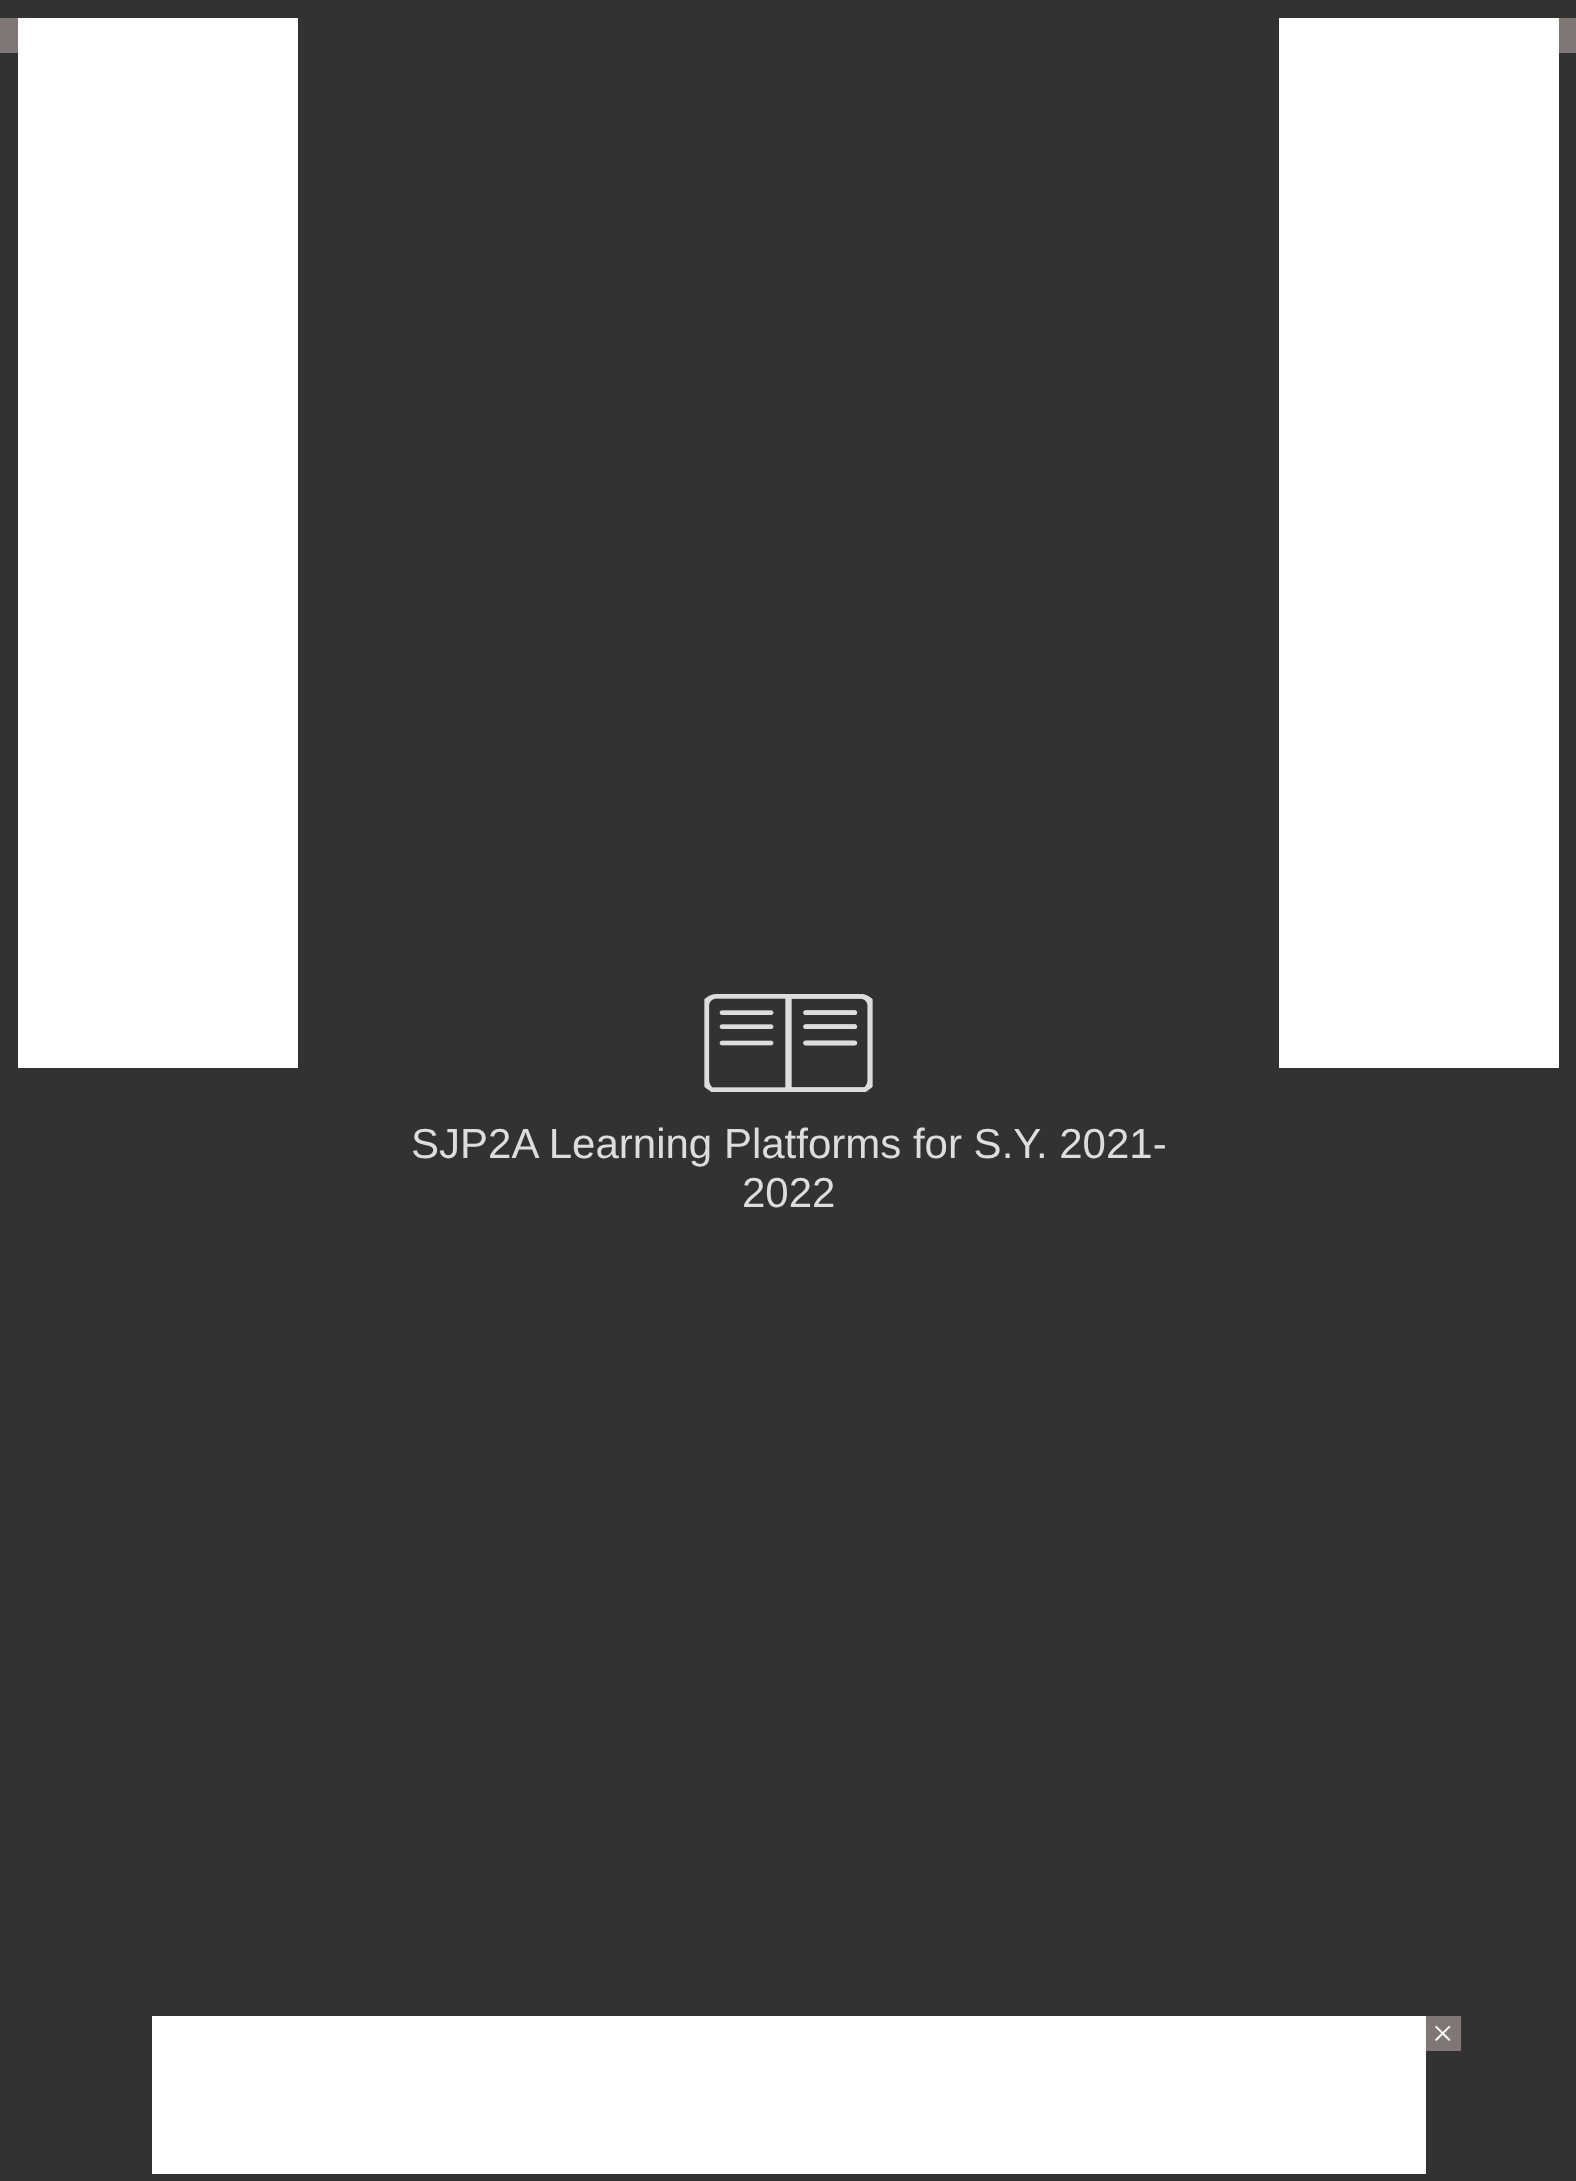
<?xml version="1.0" encoding="UTF-8"?>
<svg xmlns="http://www.w3.org/2000/svg" xmlns:xlink="http://www.w3.org/1999/xlink" width="1576" height="2181">
  <rect width="100%" height="100%" fill="#323232" />
  <rect x="18" y="18" width="280" height="1050" fill="#ffffff" />
  <rect y="18" width="18" height="35" fill="#7f7777" />
  <rect x="1279" y="18" width="280" height="1050" fill="#ffffff" />
  <rect x="1559" y="18" width="17" height="35" fill="#7f7777" />
  <image x="704" y="994" width="85" height="98" xlink:href="image1.png" />
  <image x="789" y="994" width="84" height="98" xlink:href="image2.png" />
  <image x="791" y="994" width="82" height="98" xlink:href="image3.png" />
  <rect x="152" y="2016" width="1274" height="158" fill="#ffffff" />
  <rect x="1426" y="2016" width="35" height="35" fill="#7f7777" />
  <text x="411" y="1158" style="font-family: Liberation Sans; font-size: 42px; fill: #dddddd">SJP2A Learning Platforms for S.Y. 2021-</text>
  <text x="742" y="1207" style="font-family: Liberation Sans; font-size: 42px; fill: #dddddd">2022</text>
  <text x="1432" y="2046" style="font-family: Liberation Serif; font-size: 38px; fill: #ffffff">×</text>
</svg>
